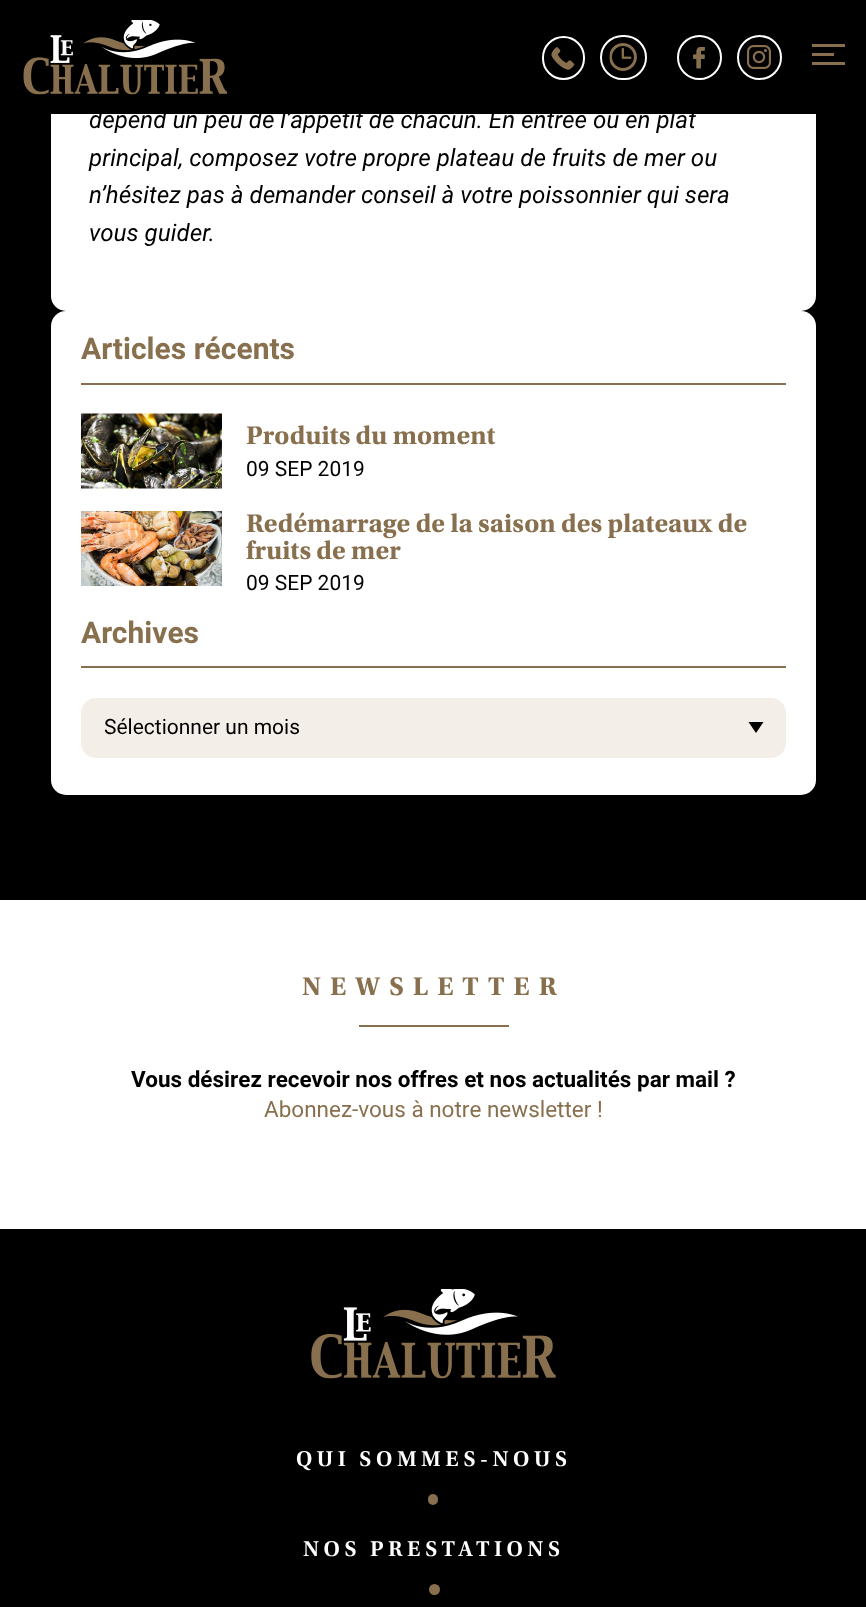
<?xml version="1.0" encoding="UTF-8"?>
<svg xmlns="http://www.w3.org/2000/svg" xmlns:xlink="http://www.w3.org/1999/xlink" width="866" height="1607">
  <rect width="100%" height="100%" fill="#ffffff" />
  <rect y="114" width="866" height="786" fill="#000000" />
  <rect x="51" y="-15" width="765" height="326" rx="15" fill="#ffffff" />
  <rect width="866" height="114" fill="#000000" />
  <image x="23" y="20" width="205" height="75" xlink:href="image1.png" />
  <rect x="543" y="37" width="41" height="42" rx="20.5" fill="none" stroke="#ffffff" stroke-width="2" />
  <image x="551" y="47" width="24" height="23" xlink:href="image2.png" />
  <rect x="601" y="36" width="45" height="43" rx="21.5" fill="none" stroke="#ffffff" stroke-width="2" />
  <image x="609" y="43" width="28" height="28" xlink:href="image3.png" />
  <circle cx="699.5" cy="57.5" r="21.5" fill="none" stroke="#ffffff" stroke-width="2" />
  <image x="693" y="47" width="12" height="22" xlink:href="image4.png" />
  <circle cx="759.5" cy="57.5" r="21.5" fill="none" stroke="#ffffff" stroke-width="2" />
  <image x="747" y="45" width="24" height="24" xlink:href="image5.png" />
  <rect x="812" y="44" width="33" height="3" fill="#886f4d" />
  <rect x="812" y="53" width="22" height="3" fill="#886f4d" />
  <rect x="812" y="62" width="33" height="3" fill="#886f4d" />
  <rect x="51" y="311" width="765" height="484" rx="15" fill="#ffffff" />
  <rect x="81" y="383" width="705" height="2" fill="#886f4d" />
  <image x="81" y="413" width="141" height="76" xlink:href="image6.png" />
  <image x="81" y="511" width="141" height="75" xlink:href="image7.png" />
  <rect x="81" y="666" width="705" height="2" fill="#886f4d" />
  <rect x="81" y="698" width="705" height="60" rx="15" fill="#f3eee7" />
  <path d="M 748.5 722 h 15 l -7.5 11 z" fill="#000000" />
  <rect x="359" y="1025" width="150" height="2" fill="#886f4d" />
  <rect y="1229" width="866" height="378" fill="#000000" />
  <image x="311" y="1289" width="245" height="90" xlink:href="image8.png" />
  <rect x="428" y="1494" width="10" height="11" rx="5" fill="#886f4d" />
  <circle cx="434.5" cy="1589.5" r="5.5" fill="#886f4d" />
  <text x="89" y="128" style="font-family: Roboto; font-size: 24px; font-style: italic; fill: #000000">dépend un peu de l’appétit de chacun. En entrée ou en plat</text>
  <text x="89" y="166" style="font-family: Roboto; font-size: 24px; font-style: italic; fill: #000000">principal, composez votre propre plateau de fruits de mer ou</text>
  <text x="89" y="203" style="font-family: Roboto; font-size: 24px; font-style: italic; fill: #000000">n’hésitez pas à demander conseil à votre poissonnier qui sera</text>
  <text x="89" y="241" style="font-family: Roboto; font-size: 24px; font-style: italic; fill: #000000">vous guider.</text>
  <text x="81" y="359" style="font-family: Roboto; font-size: 30px; font-weight: bold; fill: #886f4d">Articles récents</text>
  <text x="246" y="444" style="font-family: Utopia; font-size: 27px; font-weight: bold; fill: #886f4d">Produits du moment</text>
  <text x="246" y="476" style="font-family: Roboto; font-size: 21px; fill: #000000">09 SEP 2019</text>
  <text x="246" y="532" style="font-family: Utopia; font-size: 27px; font-weight: bold; fill: #886f4d">Redémarrage de la saison des plateaux de</text>
  <text x="246" y="559" style="font-family: Utopia; font-size: 27px; font-weight: bold; fill: #886f4d">fruits de mer</text>
  <text x="246" y="590" style="font-family: Roboto; font-size: 21px; fill: #000000">09 SEP 2019</text>
  <text x="81" y="643" style="font-family: Roboto; font-size: 30px; font-weight: bold; fill: #886f4d">Archives</text>
  <text x="104" y="734" style="font-family: Roboto; font-size: 21px; fill: #000000">Sélectionner un mois</text>
  <text x="302" y="995" style="font-family: Utopia; font-size: 27px; font-weight: bold; letter-spacing: 9px; fill: #886f4d">NEWSLETTER</text>
  <text x="131" y="1087" style="font-family: Roboto; font-size: 22.5px; font-weight: bold; fill: #000000">Vous désirez recevoir nos offres et nos actualités par mail ?</text>
  <text x="264" y="1117" style="font-family: Roboto; font-size: 22.5px; fill: #886f4d">Abonnez-vous à notre newsletter !</text>
  <text x="296" y="1466" style="font-family: Utopia; font-size: 22.5px; font-weight: 600; letter-spacing: 4.5px; fill: #ffffff">QUI SOMMES-NOUS</text>
  <text x="303" y="1556" style="font-family: Utopia; font-size: 22.5px; font-weight: 600; letter-spacing: 4.5px; fill: #ffffff">NOS PRESTATIONS</text>
</svg>
